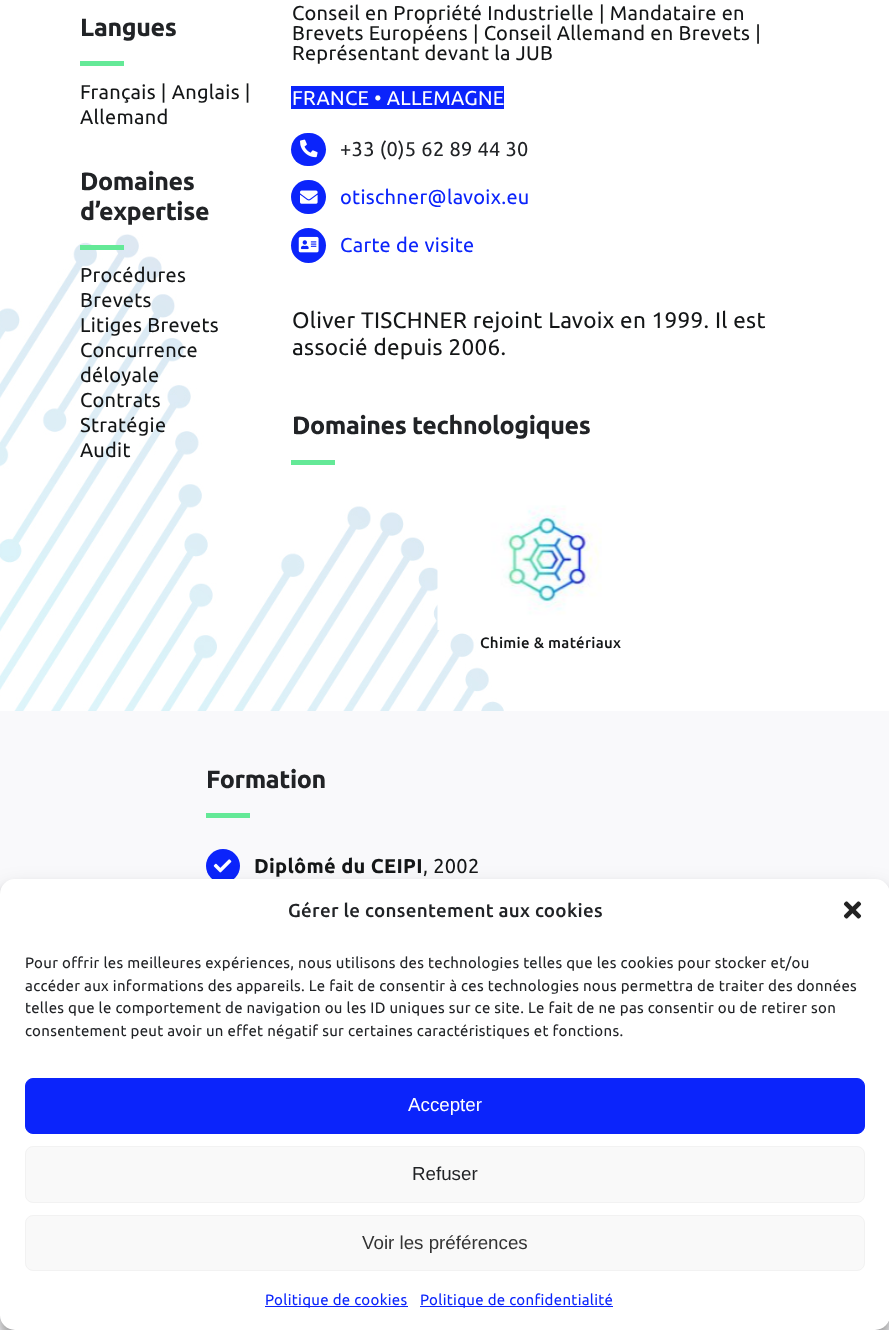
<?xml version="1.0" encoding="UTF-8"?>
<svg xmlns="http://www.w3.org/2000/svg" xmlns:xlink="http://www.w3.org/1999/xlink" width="889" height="1330">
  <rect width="100%" height="100%" fill="#ffffff" />
  <image x="0" y="234" width="504" height="477" xlink:href="image1.png" />
  <rect x="80" y="61" width="44" height="5" fill="#64e997" />
  <rect x="80" y="245" width="44" height="5" fill="#64e997" />
  <rect x="291" y="86" width="213" height="23" fill="#0b24fb" />
  <rect x="291" y="133" width="35" height="33" rx="16.5" fill="#0b24fb" />
  <image x="300" y="139" width="18" height="19" xlink:href="image2.png" />
  <rect x="291" y="180" width="35" height="34" rx="17" fill="#0b24fb" />
  <image x="300" y="190" width="18" height="14" xlink:href="image3.png" />
  <circle cx="308.5" cy="245.5" r="17.5" fill="#0b24fb" />
  <image x="298" y="236" width="21" height="17" xlink:href="image4.png" />
  <rect x="291" y="460" width="44" height="5" fill="#64e997" />
  <image x="437" y="505" width="165" height="125" xlink:href="image5.png" />
  <rect y="711" width="889" height="619" fill="#f9f9fb" />
  <rect x="206" y="813" width="44" height="5" fill="#64e997" />
  <circle cx="223" cy="866" r="17" fill="#0b24fb" />
  <image x="213" y="859" width="19" height="14" xlink:href="image6.png" />
  <rect y="886" width="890" height="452" rx="15" fill="#000000" fill-opacity="0.23" filter="blur(4px)" />
  <rect y="891" width="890" height="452" rx="15" fill="#000000" fill-opacity="0.19" filter="blur(12.5px)" />
  <rect y="879" width="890" height="451" rx="15" fill="#ffffff" />
  <image x="843" y="901" width="19" height="18" xlink:href="image7.png" />
  <rect x="25.5" y="1078.5" width="839" height="55" rx="7.5" fill="#0b24fb" stroke="#0b24fb" />
  <rect x="25.5" y="1146.5" width="839" height="56" rx="7.5" fill="#f9f9f9" stroke="#f2f2f2" />
  <rect x="25.5" y="1215.5" width="839" height="55" rx="7.5" fill="#f9f9f9" stroke="#f2f2f2" />
  <rect x="265" y="1306" width="143" height="1" fill="#0b24fb" />
  <rect x="420" y="1306" width="193" height="1" fill="#0b24fb" />
  <text x="80" y="36" style="font-family: Ubuntu; font-size: 25px; font-weight: bold; letter-spacing: -0.4px; fill: #212326">Langues</text>
  <text x="80" y="99" style="font-family: Ubuntu; font-size: 20px; letter-spacing: 0.3px; fill: #141617">Français | Anglais |</text>
  <text x="80" y="124" style="font-family: Ubuntu; font-size: 20px; letter-spacing: 0.3px; fill: #141617">Allemand</text>
  <text x="80" y="190" style="font-family: Ubuntu; font-size: 25px; font-weight: bold; letter-spacing: -0.4px; fill: #212326">Domaines</text>
  <text x="80" y="220" style="font-family: Ubuntu; font-size: 25px; font-weight: bold; letter-spacing: -0.4px; fill: #212326">d’expertise</text>
  <text x="80" y="282" style="font-family: Ubuntu; font-size: 20px; letter-spacing: 0.3px; fill: #141617">Procédures</text>
  <text x="80" y="307" style="font-family: Ubuntu; font-size: 20px; letter-spacing: 0.3px; fill: #141617">Brevets</text>
  <text x="80" y="332" style="font-family: Ubuntu; font-size: 20px; letter-spacing: 0.3px; fill: #141617">Litiges Brevets</text>
  <text x="80" y="357" style="font-family: Ubuntu; font-size: 20px; letter-spacing: 0.3px; fill: #141617">Concurrence</text>
  <text x="80" y="382" style="font-family: Ubuntu; font-size: 20px; letter-spacing: 0.3px; fill: #141617">déloyale</text>
  <text x="80" y="407" style="font-family: Ubuntu; font-size: 20px; letter-spacing: 0.3px; fill: #141617">Contrats</text>
  <text x="80" y="432" style="font-family: Ubuntu; font-size: 20px; letter-spacing: 0.3px; fill: #141617">Stratégie</text>
  <text x="80" y="457" style="font-family: Ubuntu; font-size: 20px; letter-spacing: 0.3px; fill: #141617">Audit</text>
  <text x="292" y="20" style="font-family: Ubuntu; font-size: 20px; letter-spacing: 0.3px; fill: #141617">Conseil en Propriété Industrielle | Mandataire en</text>
  <text x="292" y="40" style="font-family: Ubuntu; font-size: 20px; letter-spacing: 0.3px; fill: #141617">Brevets Européens | Conseil Allemand en Brevets |</text>
  <text x="292" y="60" style="font-family: Ubuntu; font-size: 20px; letter-spacing: 0.3px; fill: #141617">Représentant devant la JUB</text>
  <text x="292" y="105" style="font-family: Ubuntu; font-size: 20px; letter-spacing: 0.3px; fill: #ffffff">FRANCE • ALLEMAGNE</text>
  <text x="340" y="156" style="font-family: Ubuntu; font-size: 20px; letter-spacing: 0.3px; fill: #212326">+33 (0)5 62 89 44 30</text>
  <text x="340" y="204" style="font-family: Ubuntu; font-size: 20px; letter-spacing: 0.3px; fill: #0b24fb">otischner@lavoix.eu</text>
  <text x="340" y="252" style="font-family: Ubuntu; font-size: 20px; letter-spacing: 0.3px; fill: #0b24fb">Carte de visite</text>
  <text x="292" y="328" style="font-family: Ubuntu; font-size: 22.5px; letter-spacing: 0.3px; fill: #141617">Oliver TISCHNER rejoint Lavoix en 1999. Il est</text>
  <text x="292" y="355" style="font-family: Ubuntu; font-size: 22.5px; letter-spacing: 0.3px; fill: #141617">associé depuis 2006.</text>
  <text x="292" y="434" style="font-family: Ubuntu; font-size: 25px; font-weight: bold; letter-spacing: -0.4px; fill: #212326">Domaines technologiques</text>
  <text x="480" y="648" style="font-family: Ubuntu; font-size: 15px; font-weight: 500; letter-spacing: 0.3px; fill: #141617">Chimie &amp; matériaux</text>
  <text x="206" y="788" style="font-family: Ubuntu; font-size: 25px; font-weight: bold; letter-spacing: -0.4px; fill: #212326">Formation</text>
  <text x="254" y="873" style="font-family: Ubuntu; font-size: 20px; font-weight: bold; letter-spacing: 0.3px; fill: #141617">Diplômé du CEIPI</text>
  <text x="423" y="873" style="font-family: Ubuntu; font-size: 20px; letter-spacing: 0.3px; fill: #141617">, 2002</text>
  <text x="288" y="917" style="font-family: Ubuntu; font-size: 18.75px; font-weight: 500; letter-spacing: 0.3px; fill: #212326">Gérer le consentement aux cookies</text>
  <text x="25" y="968" style="font-family: Ubuntu; font-size: 15px; letter-spacing: 0.3px; fill: #212326">Pour offrir les meilleures expériences, nous utilisons des technologies telles que les cookies pour stocker et/ou</text>
  <text x="25" y="991" style="font-family: Ubuntu; font-size: 15px; letter-spacing: 0.3px; fill: #212326">accéder aux informations des appareils. Le fait de consentir à ces technologies nous permettra de traiter des données</text>
  <text x="25" y="1013" style="font-family: Ubuntu; font-size: 15px; letter-spacing: 0.3px; fill: #212326">telles que le comportement de navigation ou les ID uniques sur ce site. Le fait de ne pas consentir ou de retirer son</text>
  <text x="25" y="1036" style="font-family: Ubuntu; font-size: 15px; letter-spacing: 0.3px; fill: #212326">consentement peut avoir un effet négatif sur certaines caractéristiques et fonctions.</text>
  <text x="408" y="1111" style="font-family: Liberation Sans; font-size: 18.75px; fill: #ffffff">Accepter</text>
  <text x="412" y="1180" style="font-family: Liberation Sans; font-size: 18.75px; fill: #212326">Refuser</text>
  <text x="362" y="1249" style="font-family: Liberation Sans; font-size: 18.75px; fill: #333333">Voir les préférences</text>
  <text x="265" y="1305" style="font-family: Ubuntu; font-size: 15px; letter-spacing: 0.3px; fill: #0b24fb">Politique de cookies</text>
  <text x="420" y="1305" style="font-family: Ubuntu; font-size: 15px; letter-spacing: 0.3px; fill: #0b24fb">Politique de confidentialité</text>
</svg>
